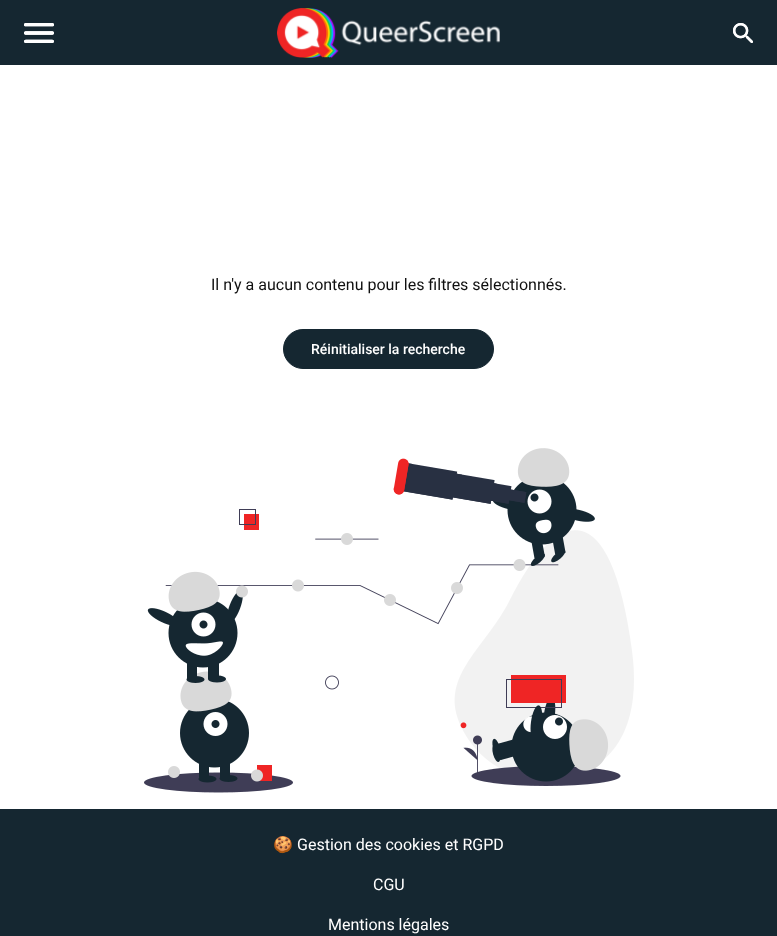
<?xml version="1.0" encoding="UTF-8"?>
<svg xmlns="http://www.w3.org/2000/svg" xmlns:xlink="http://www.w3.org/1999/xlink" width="777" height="936">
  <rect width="100%" height="100%" fill="#ffffff" />
  <rect width="777" height="65" fill="#152731" />
  <image x="24" y="23" width="30" height="20" xlink:href="image1.png" />
  <image x="277" y="8" width="223" height="50" xlink:href="image2.png" />
  <image x="733" y="23" width="20" height="20" xlink:href="image3.png" />
  <rect x="283.5" y="329.5" width="210" height="39" rx="19.5" fill="#152731" stroke="#152731" />
  <image x="144" y="448" width="490" height="345" xlink:href="image4.png" />
  <rect y="809" width="777" height="127" fill="#152731" />
  <text x="211" y="290" style="font-family: Roboto; font-size: 16px; fill: #101010">Il n'y a aucun contenu pour les filtres sélectionnés.</text>
  <text x="311" y="354" style="font-family: Roboto; font-size: 14px; font-weight: 500; fill: #ffffff">Réinitialiser la recherche</text>
  <text x="273" y="850" style="font-family: Noto Color Emoji; font-size: 16px; fill: #ffffff">🍪</text>
  <text x="297" y="850" style="font-family: Roboto; font-size: 16px; fill: #ffffff">Gestion des cookies et RGPD</text>
  <text x="373" y="890" style="font-family: Roboto; font-size: 16px; fill: #ffffff">CGU</text>
  <text x="328" y="930" style="font-family: Roboto; font-size: 16px; fill: #ffffff">Mentions légales</text>
</svg>
